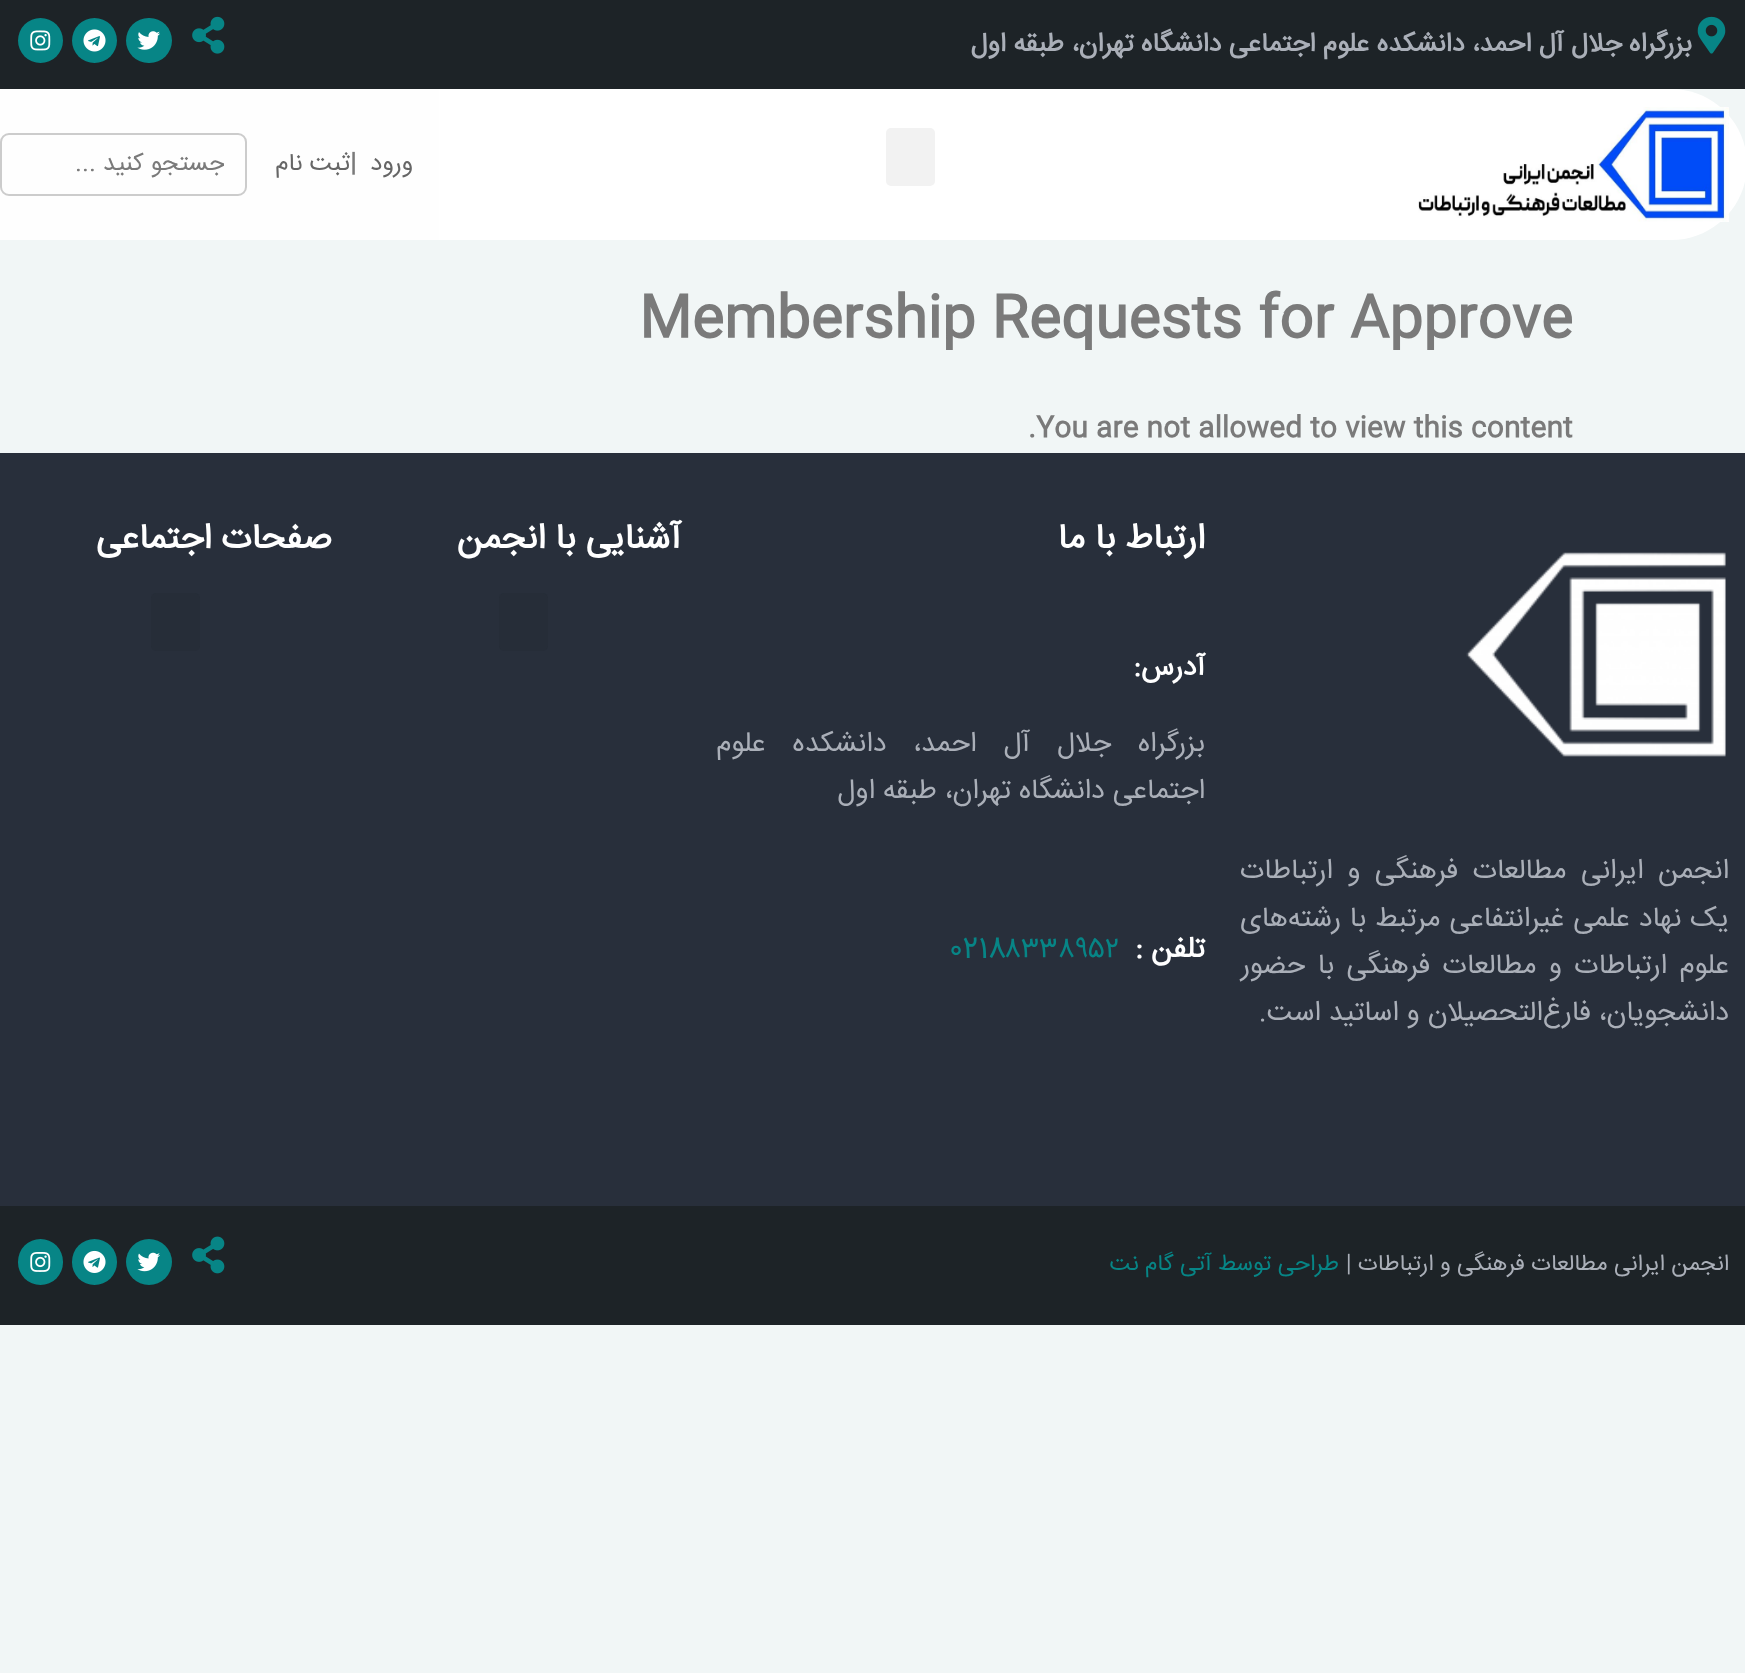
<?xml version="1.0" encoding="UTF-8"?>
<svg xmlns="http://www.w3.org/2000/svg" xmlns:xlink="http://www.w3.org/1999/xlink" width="1745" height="1673">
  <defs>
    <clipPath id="clip1"><rect x="23" y="144" width="201" height="42" /></clipPath>
  </defs>
  <rect width="100%" height="100%" fill="#f1f6f6" />
  <rect width="1745" height="89" fill="#1d2327" />
  <image x="1697" y="16" width="29" height="38" xlink:href="image1.png" />
  <image x="192" y="16" width="33" height="38" xlink:href="image2.png" />
  <rect x="126" y="18" width="46" height="45" rx="22.5" fill="#078586" />
  <image x="137" y="31" width="23" height="19" xlink:href="image3.png" />
  <circle cx="94.5" cy="40.5" r="22.5" fill="#078586" />
  <image x="83" y="29" width="23" height="23" xlink:href="image4.png" />
  <circle cx="40.5" cy="40.5" r="22.5" fill="#078586" />
  <image x="30" y="30" width="21" height="21" xlink:href="image5.png" />
  <rect y="89" width="439" height="151" fill="#fefefe" />
  <path d="M 1397 89 h 274.5 c 41.5 0 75.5 34 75.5 75.5 c 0 41.5 -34 75.5 -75.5 75.5 h -274.5 z" fill="#ffffff" />
  <image x="1418" y="107" width="311" height="115" xlink:href="image6.png" />
  <rect x="439" y="89" width="958" height="151" fill="#ffffff" />
  <rect x="886" y="128" width="49" height="58" rx="5" fill="#f2f2f2" />
  <rect x="1" y="134" width="245" height="61" rx="8" fill="none" stroke="#cccccc" stroke-width="2" />
  <rect y="453" width="1745" height="753" fill="#282f3b" />
  <image x="1466" y="552" width="260" height="205" xlink:href="image7.png" />
  <rect x="499" y="593" width="49" height="58" rx="5" fill="#262d38" />
  <rect x="151" y="593" width="49" height="58" rx="5" fill="#262d38" />
  <rect y="1206" width="1745" height="119" fill="#1d2327" />
  <image x="192" y="1236" width="33" height="38" xlink:href="image8.png" />
  <circle cx="149" cy="1262" r="23" fill="#078586" />
  <image x="137" y="1252" width="23" height="20" xlink:href="image9.png" />
  <rect x="72" y="1239" width="45" height="46" rx="22.5" fill="#078586" />
  <image x="83" y="1250" width="23" height="23" xlink:href="image10.png" />
  <rect x="18" y="1239" width="45" height="46" rx="22.5" fill="#078586" />
  <image x="30" y="1252" width="21" height="20" xlink:href="image11.png" />
  <text x="1692" y="51" style="font-family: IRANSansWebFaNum; font-size: 26.25px; font-weight: bold; direction: rtl; fill: #aaafb8">بزرگراه جلال آل احمد، دانشکده علوم اجتماعی دانشگاه تهران، طبقه اول</text>
  <text x="413" y="170" style="font-family: IRANSansWebFaNum; font-size: 24.5px; direction: rtl; fill: #666666">ورود</text>
  <text x="350" y="170" style="font-family: IRANSansWebFaNum; font-size: 24.5px; font-weight: bold; fill: #7a7a7a">|</text>
  <text x="350" y="170" style="font-family: IRANSansWebFaNum; font-size: 24.5px; direction: rtl; fill: #666666">ثبت نام</text>
  <g clip-path="url(#clip1)">
    <text x="225" y="170" style="font-family: IRANSansWebFaNum; font-size: 24.5px; direction: rtl; fill: #7a7a7a">جستجو کنید ...</text>
  </g>
  <text x="639" y="335" style="font-family: IRANSansWebFaNum; font-size: 56px; font-weight: bold; fill: #7a7a7a">Membership Requests for Approve</text>
  <text x="1028" y="436" style="font-family: IRANSansWebFaNum; font-size: 28px; font-weight: bold; fill: #7a7a7a">.You are not allowed to view this content</text>
  <text x="1729" y="878" word-spacing="6.5" style="font-family: IRANSansWebFaNum; font-size: 28px; direction: rtl; fill: #aaafb8">انجمن ایرانی مطالعات فرهنگی و ارتباطات</text>
  <text x="1729" y="926" word-spacing="1" style="font-family: IRANSansWebFaNum; font-size: 28px; direction: rtl; fill: #aaafb8">یک نهاد علمی غیرانتفاعی مرتبط با رشته‌های</text>
  <text x="1729" y="973" word-spacing="4.5" style="font-family: IRANSansWebFaNum; font-size: 28px; direction: rtl; fill: #aaafb8">علوم ارتباطات و مطالعات فرهنگی با حضور</text>
  <text x="1729" y="1020" style="font-family: IRANSansWebFaNum; font-size: 28px; direction: rtl; fill: #aaafb8">دانشجویان، فارغ‌التحصیلان و اساتید است.</text>
  <text x="1205" y="548" style="font-family: IRANSansWebFaNum; font-size: 35px; font-weight: bold; direction: rtl; fill: #ffffff">ارتباط با ما</text>
  <text x="1205" y="675" style="font-family: IRANSansWebFaNum; font-size: 28px; font-weight: bold; direction: rtl; fill: #ffffff">آدرس:</text>
  <text x="1205" y="751" word-spacing="19" style="font-family: IRANSansWebFaNum; font-size: 28px; direction: rtl; fill: #aaafb8">بزرگراه جلال آل احمد، دانشکده علوم</text>
  <text x="1205" y="798" style="font-family: IRANSansWebFaNum; font-size: 28px; direction: rtl; fill: #aaafb8">اجتماعی دانشگاه تهران، طبقه اول</text>
  <text x="1205" y="957" style="font-family: IRANSansWebFaNum; font-size: 29px; font-weight: bold; direction: rtl; fill: #ffffff">تلفن :</text>
  <text x="949" y="957" style="font-family: IRANSansWebFaNum; font-size: 29px; fill: #078586">0218۸۳۳۸۹۵۲</text>
  <text x="681" y="548" style="font-family: IRANSansWebFaNum; font-size: 35px; font-weight: bold; direction: rtl; fill: #ffffff">آشنایی با انجمن</text>
  <text x="332" y="548" style="font-family: IRANSansWebFaNum; font-size: 35px; font-weight: bold; direction: rtl; fill: #ffffff">صفحات اجتماعی</text>
  <text x="1729" y="1270" style="font-family: IRANSansWebFaNum; font-size: 22.75px; direction: rtl; fill: #aaafb8">انجمن ایرانی مطالعات فرهنگی و ارتباطات |</text>
  <text x="1339" y="1270" style="font-family: IRANSansWebFaNum; font-size: 22.75px; direction: rtl; fill: #078586">طراحی توسط آتی گام نت</text>
</svg>
